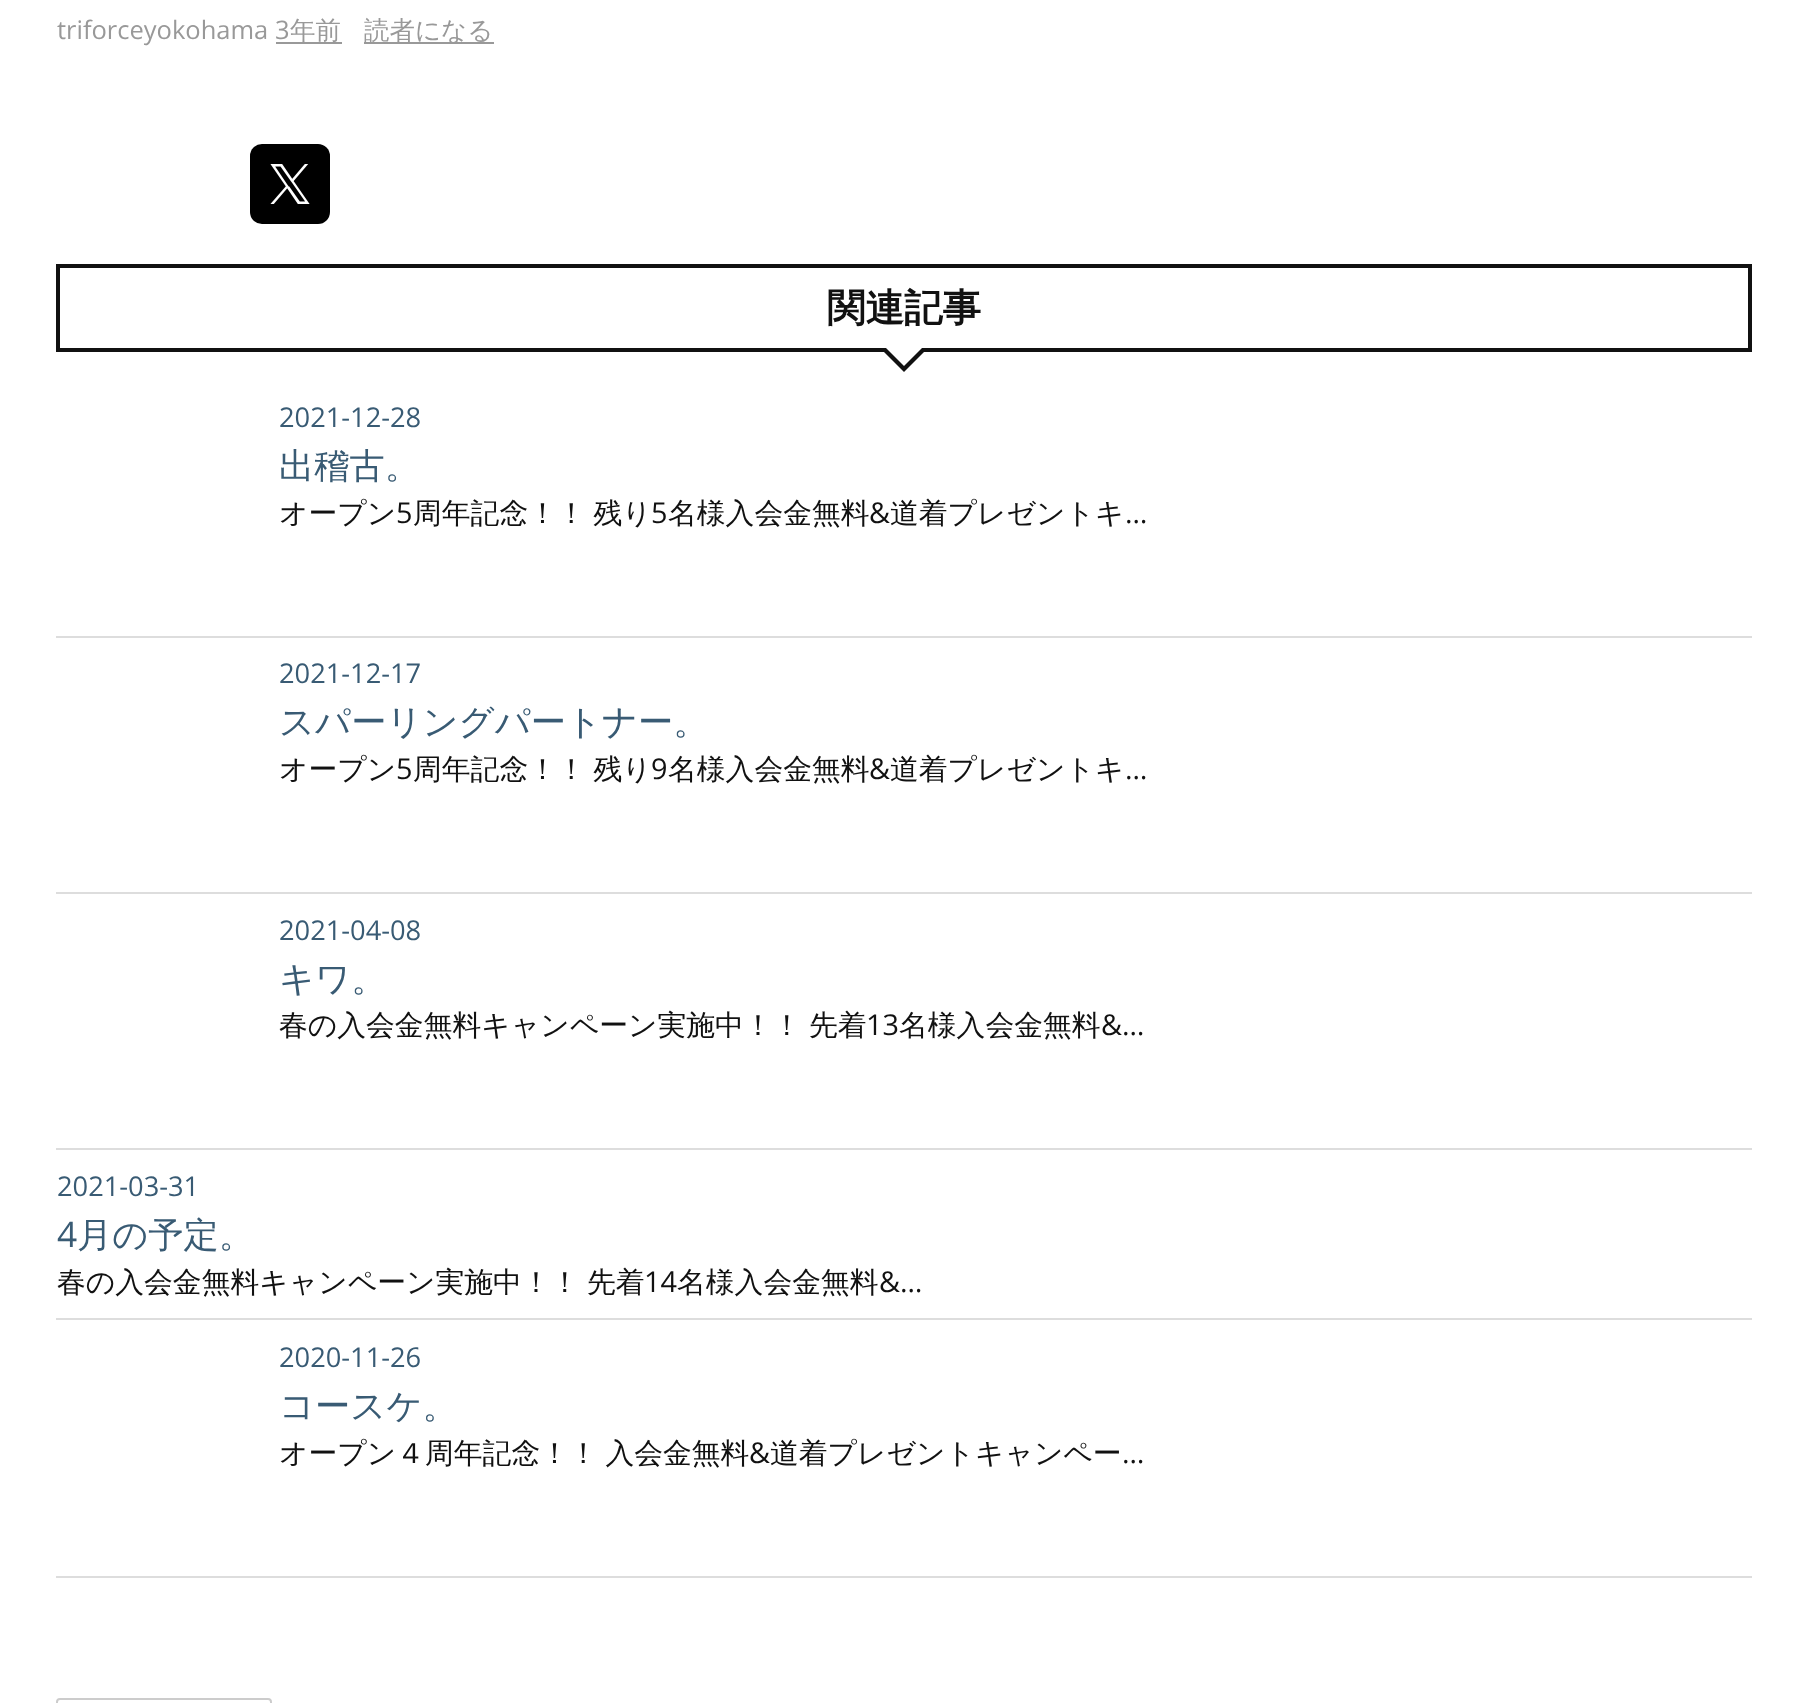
<?xml version="1.0" encoding="UTF-8"?>
<svg xmlns="http://www.w3.org/2000/svg" xmlns:xlink="http://www.w3.org/1999/xlink" width="1808" height="1703">
  <rect width="100%" height="100%" fill="#ffffff" />
  <rect x="276" y="42" width="66" height="2" fill="#999999" />
  <rect x="364" y="42" width="130" height="2" fill="#999999" />
  <rect x="250" y="144" width="80" height="80" rx="12" fill="#000000" />
  <image x="270" y="164" width="40" height="40" xlink:href="image1.png" />
  <rect x="58" y="266" width="1692" height="84" fill="none" stroke="#111111" stroke-width="4" />
  <path d="M 880 348 h 48 l -24 24 z" fill="#111111" />
  <path d="M 886 348 h 36 l -18 18 z" fill="#ffffff" />
  <rect x="56" y="636" width="1696" height="2" fill="#dddddd" />
  <rect x="56" y="892" width="1696" height="2" fill="#dddddd" />
  <rect x="56" y="1148" width="1696" height="2" fill="#dddddd" />
  <rect x="56" y="1318" width="1696" height="2" fill="#dddddd" />
  <rect x="56" y="1576" width="1696" height="2" fill="#dddddd" />
  <rect x="57" y="1699" width="214" height="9" rx="3" fill="none" stroke="#cccccc" stroke-width="2" />
  <text x="57" y="39" style="font-family: Open Sans; font-size: 25.5px; fill: #999999">triforceyokohama 3</text>
  <text x="290" y="39" style="font-family: WenQuanYi Zen Hei; font-size: 25.5px; font-weight: 500; fill: #999999">年前</text>
  <text x="364" y="39" style="font-family: WenQuanYi Zen Hei; font-size: 25.5px; font-weight: 500; fill: #999999">読者になる</text>
  <text x="827" y="321" style="font-family: WenQuanYi Zen Hei; font-size: 38.5px; font-weight: bold; fill: #111111">関連記事</text>
  <text x="279" y="427" style="font-family: Open Sans; font-size: 27.25px; fill: #395b74">2021-12-28</text>
  <text x="279" y="478" style="font-family: WenQuanYi Zen Hei; font-size: 35.25px; font-weight: 500; fill: #395b74">出稽古。</text>
  <text x="279" y="523" style="font-family: WenQuanYi Zen Hei; font-size: 28.8px; font-weight: 500; fill: #111111">オープン</text>
  <text x="396" y="523" style="font-family: Open Sans; font-size: 28.8px; fill: #111111">5</text>
  <text x="413" y="523" word-spacing="-1" style="font-family: WenQuanYi Zen Hei; font-size: 28.8px; font-weight: 500; fill: #111111">周年記念！！ 残り</text>
  <text x="651" y="523" style="font-family: Open Sans; font-size: 28.8px; fill: #111111">5</text>
  <text x="668" y="523" style="font-family: WenQuanYi Zen Hei; font-size: 28.8px; font-weight: 500; fill: #111111">名様入会金無料</text>
  <text x="869" y="523" style="font-family: Open Sans; font-size: 28.8px; fill: #111111">&amp;</text>
  <text x="890" y="523" style="font-family: WenQuanYi Zen Hei; font-size: 28.8px; font-weight: 500; fill: #111111">道着プレゼントキ</text>
  <text x="1125" y="523" style="font-family: Open Sans; font-size: 28.8px; fill: #111111">…</text>
  <text x="279" y="683" style="font-family: Open Sans; font-size: 27.25px; fill: #395b74">2021-12-17</text>
  <text x="279" y="734" style="font-family: WenQuanYi Zen Hei; font-size: 35.25px; font-weight: 500; fill: #395b74">スパーリングパートナー。</text>
  <text x="279" y="779" style="font-family: WenQuanYi Zen Hei; font-size: 28.8px; font-weight: 500; fill: #111111">オープン</text>
  <text x="396" y="779" style="font-family: Open Sans; font-size: 28.8px; fill: #111111">5</text>
  <text x="413" y="779" word-spacing="-1" style="font-family: WenQuanYi Zen Hei; font-size: 28.8px; font-weight: 500; fill: #111111">周年記念！！ 残り</text>
  <text x="651" y="779" style="font-family: Open Sans; font-size: 28.8px; fill: #111111">9</text>
  <text x="668" y="779" style="font-family: WenQuanYi Zen Hei; font-size: 28.8px; font-weight: 500; fill: #111111">名様入会金無料</text>
  <text x="869" y="779" style="font-family: Open Sans; font-size: 28.8px; fill: #111111">&amp;</text>
  <text x="890" y="779" style="font-family: WenQuanYi Zen Hei; font-size: 28.8px; font-weight: 500; fill: #111111">道着プレゼントキ</text>
  <text x="1125" y="779" style="font-family: Open Sans; font-size: 28.8px; fill: #111111">…</text>
  <text x="279" y="940" style="font-family: Open Sans; font-size: 27.25px; fill: #395b74">2021-04-08</text>
  <text x="279" y="991" style="font-family: WenQuanYi Zen Hei; font-size: 35.25px; font-weight: 500; fill: #395b74">キワ。</text>
  <text x="279" y="1035" word-spacing="-1" style="font-family: WenQuanYi Zen Hei; font-size: 28.8px; font-weight: 500; fill: #111111">春の入会金無料キャンペーン実施中！！ 先着</text>
  <text x="866" y="1035" style="font-family: Open Sans; font-size: 28.8px; fill: #111111">13</text>
  <text x="899" y="1035" style="font-family: WenQuanYi Zen Hei; font-size: 28.8px; font-weight: 500; fill: #111111">名様入会金無料</text>
  <text x="1101" y="1035" style="font-family: Open Sans; font-size: 28.8px; fill: #111111">&amp;…</text>
  <text x="57" y="1196" style="font-family: Open Sans; font-size: 27.25px; fill: #395b74">2021-03-31</text>
  <text x="57" y="1247" style="font-family: Open Sans; font-size: 35.25px; fill: #395b74">4</text>
  <text x="77" y="1247" style="font-family: WenQuanYi Zen Hei; font-size: 35.25px; font-weight: 500; fill: #395b74">月の予定。</text>
  <text x="57" y="1292" word-spacing="-1" style="font-family: WenQuanYi Zen Hei; font-size: 28.8px; font-weight: 500; fill: #111111">春の入会金無料キャンペーン実施中！！ 先着</text>
  <text x="644" y="1292" style="font-family: Open Sans; font-size: 28.8px; fill: #111111">14</text>
  <text x="677" y="1292" style="font-family: WenQuanYi Zen Hei; font-size: 28.8px; font-weight: 500; fill: #111111">名様入会金無料</text>
  <text x="879" y="1292" style="font-family: Open Sans; font-size: 28.8px; fill: #111111">&amp;…</text>
  <text x="279" y="1367" style="font-family: Open Sans; font-size: 27.25px; fill: #395b74">2020-11-26</text>
  <text x="279" y="1418" style="font-family: WenQuanYi Zen Hei; font-size: 35.25px; font-weight: 500; fill: #395b74">コースケ。</text>
  <text x="279" y="1463" word-spacing="-1" style="font-family: WenQuanYi Zen Hei; font-size: 28.8px; font-weight: 500; fill: #111111">オープン４周年記念！！ 入会金無料</text>
  <text x="749" y="1463" style="font-family: Open Sans; font-size: 28.8px; fill: #111111">&amp;</text>
  <text x="770" y="1463" style="font-family: WenQuanYi Zen Hei; font-size: 28.8px; font-weight: 500; fill: #111111">道着プレゼントキャンペー</text>
  <text x="1122" y="1463" style="font-family: Open Sans; font-size: 28.8px; fill: #111111">…</text>
</svg>
